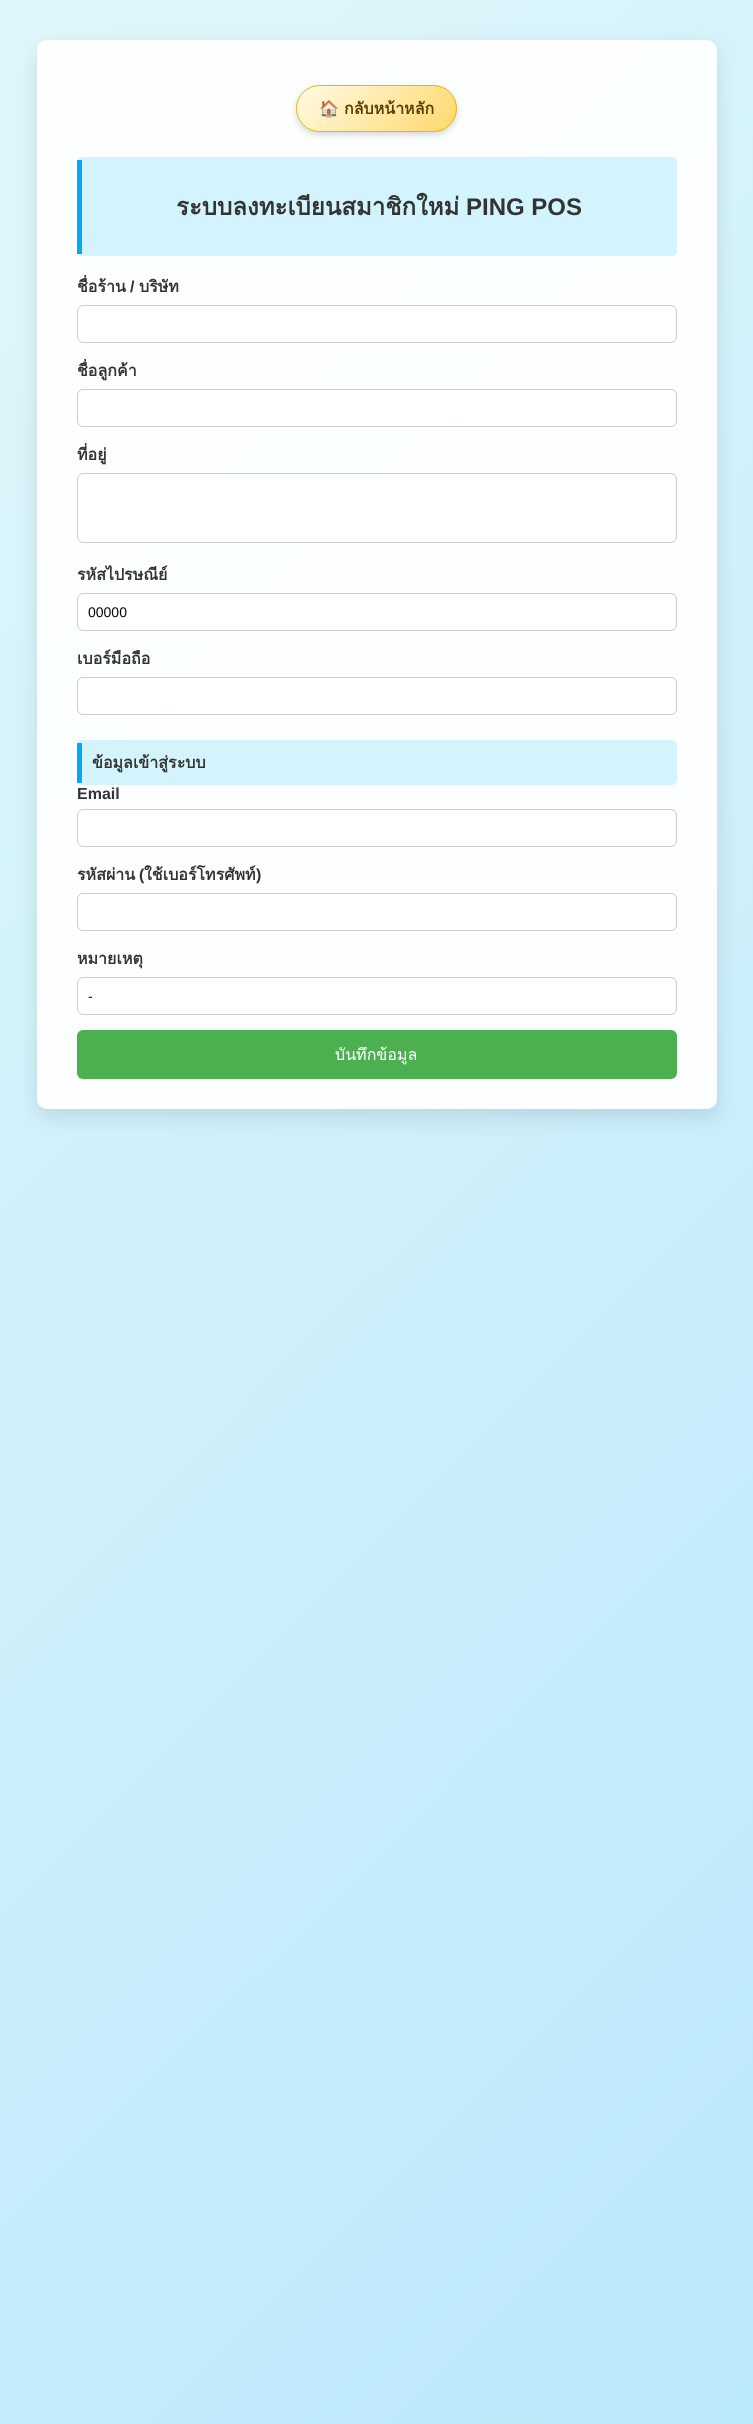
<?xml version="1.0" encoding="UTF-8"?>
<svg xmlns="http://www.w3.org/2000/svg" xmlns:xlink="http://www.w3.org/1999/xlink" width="753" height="2424">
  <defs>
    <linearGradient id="g1" gradientUnits="userSpaceOnUse" x1="-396" y1="396" x2="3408" y2="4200"><stop offset="0" stop-color="#e0f7fa" /><stop offset="0.5" stop-color="#b3e5fc" /><stop offset="1" stop-color="#81d4fa" /></linearGradient>
    <clipPath id="clip1"><path d="M 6 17 h 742 v 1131 h -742 z m 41 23 h 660 c 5.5 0 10 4.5 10 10 v 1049 c 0 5.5 -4.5 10 -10 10 h -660 c -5.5 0 -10 -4.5 -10 -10 v -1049 c 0 -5.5 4.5 -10 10 -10 z" clip-rule="evenodd" /></clipPath>
    <clipPath id="clip2"><rect x="296" y="85" width="161" height="47" rx="23.5" /></clipPath>
    <linearGradient id="g2" gradientUnits="userSpaceOnUse" x1="326" y1="58" x2="428" y2="160"><stop offset="0" stop-color="#fffbe6" /><stop offset="1" stop-color="#ffd86b" /></linearGradient>
  </defs>
  <rect width="100%" height="100%" fill="#ffffff" />
  <rect width="753" height="2424" fill="url(#g1)" />
  <g clip-path="url(#clip1)">
    <rect x="37" y="48" width="680" height="1069" rx="10" fill="#000000" fill-opacity="0.1" filter="blur(10px)" />
  </g>
  <rect x="37" y="40" width="680" height="1069" rx="10" fill="#ffffff" fill-opacity="0.93" />
  <rect x="296" y="88" width="161" height="47" rx="23.5" fill="#000000" fill-opacity="0.15" filter="blur(3px)" />
  <g clip-path="url(#clip2)">
    <rect x="297" y="86" width="159" height="45" fill="url(#g2)" />
  </g>
  <rect x="296.5" y="85.5" width="160" height="46" rx="23" fill="none" stroke="#e6b800" />
  <rect x="77" y="157" width="600" height="99" rx="5" fill="#d3f4fc" />
  <rect x="77" y="160" width="5" height="94" fill="#03a9f4" />
  <rect x="77.5" y="305.5" width="599" height="37" rx="5.5" fill="#ffffff" stroke="#cccccc" />
  <rect x="77.5" y="389.5" width="599" height="37" rx="5.5" fill="#ffffff" stroke="#cccccc" />
  <rect x="77.5" y="473.5" width="599" height="69" rx="5.5" fill="#ffffff" stroke="#cccccc" />
  <rect x="77.5" y="593.5" width="599" height="37" rx="5.5" fill="#ffffff" stroke="#cccccc" />
  <rect x="77.5" y="677.5" width="599" height="37" rx="5.5" fill="#ffffff" stroke="#cccccc" />
  <rect x="77" y="740" width="600" height="45" rx="5" fill="#d3f4fc" />
  <rect x="77" y="743" width="5" height="40" fill="#03a9f4" />
  <rect x="77.5" y="809.5" width="599" height="37" rx="5.5" fill="#ffffff" stroke="#cccccc" />
  <rect x="77.5" y="893.5" width="599" height="37" rx="5.5" fill="#ffffff" stroke="#cccccc" />
  <rect x="77.5" y="977.5" width="599" height="37" rx="5.5" fill="#ffffff" stroke="#cccccc" />
  <rect x="77" y="1030" width="600" height="49" rx="6" fill="#4caf50" />
  <text x="319" y="114" style="font-family: Noto Color Emoji; font-size: 16px; font-weight: bold; fill: #5a3e00">🏠</text>
  <text x="344" y="114" style="font-family: Loma; font-size: 16px; font-weight: bold; fill: #5a3e00">กลับหน้าหลัก</text>
  <text x="176" y="215" style="font-family: Loma; font-size: 24px; font-weight: bold; fill: #333333">ระบบลงทะเบียนสมาชิกใหม่</text>
  <text x="466" y="215" style="font-family: Liberation Sans; font-size: 24px; font-weight: bold; fill: #333333">PING POS</text>
  <text x="77" y="292" style="font-family: Loma; font-size: 16px; font-weight: bold; fill: #333333">ชื่อร้าน</text>
  <text x="130" y="292" style="font-family: Liberation Sans; font-size: 16px; font-weight: bold; fill: #333333">/</text>
  <text x="139" y="292" style="font-family: Loma; font-size: 16px; font-weight: bold; fill: #333333">บริษัท</text>
  <text x="77" y="376" style="font-family: Loma; font-size: 16px; font-weight: bold; fill: #333333">ชื่อลูกค้า</text>
  <text x="77" y="460" style="font-family: Loma; font-size: 16px; font-weight: bold; fill: #333333">ที่อยู่</text>
  <text x="77" y="580" style="font-family: Loma; font-size: 16px; font-weight: bold; fill: #333333">รหัสไปรษณีย์</text>
  <text x="88" y="617" style="font-family: Liberation Sans; font-size: 14px; fill: #000000">00000</text>
  <text x="77" y="664" style="font-family: Loma; font-size: 16px; font-weight: bold; fill: #333333">เบอร์มือถือ</text>
  <text x="92" y="768" style="font-family: Loma; font-size: 16px; font-weight: bold; fill: #333333">ข้อมูลเข้าสู่ระบบ</text>
  <text x="77" y="799" style="font-family: Liberation Sans; font-size: 16px; font-weight: bold; fill: #333333">Email</text>
  <text x="77" y="880" style="font-family: Loma; font-size: 16px; font-weight: bold; fill: #333333">รหัสผ่าน</text>
  <text x="139" y="880" style="font-family: Liberation Sans; font-size: 16px; font-weight: bold; fill: #333333">(</text>
  <text x="144" y="880" style="font-family: Loma; font-size: 16px; font-weight: bold; fill: #333333">ใช้เบอร์โทรศัพท์</text>
  <text x="256" y="880" style="font-family: Liberation Sans; font-size: 16px; font-weight: bold; fill: #333333">)</text>
  <text x="77" y="964" style="font-family: Loma; font-size: 16px; font-weight: bold; fill: #333333">หมายเหตุ</text>
  <text x="88" y="1001" style="font-family: Liberation Sans; font-size: 14px; fill: #000000">-</text>
  <text x="335" y="1060" style="font-family: Loma; font-size: 16px; fill: #ffffff">บันทึกข้อมูล</text>
</svg>
